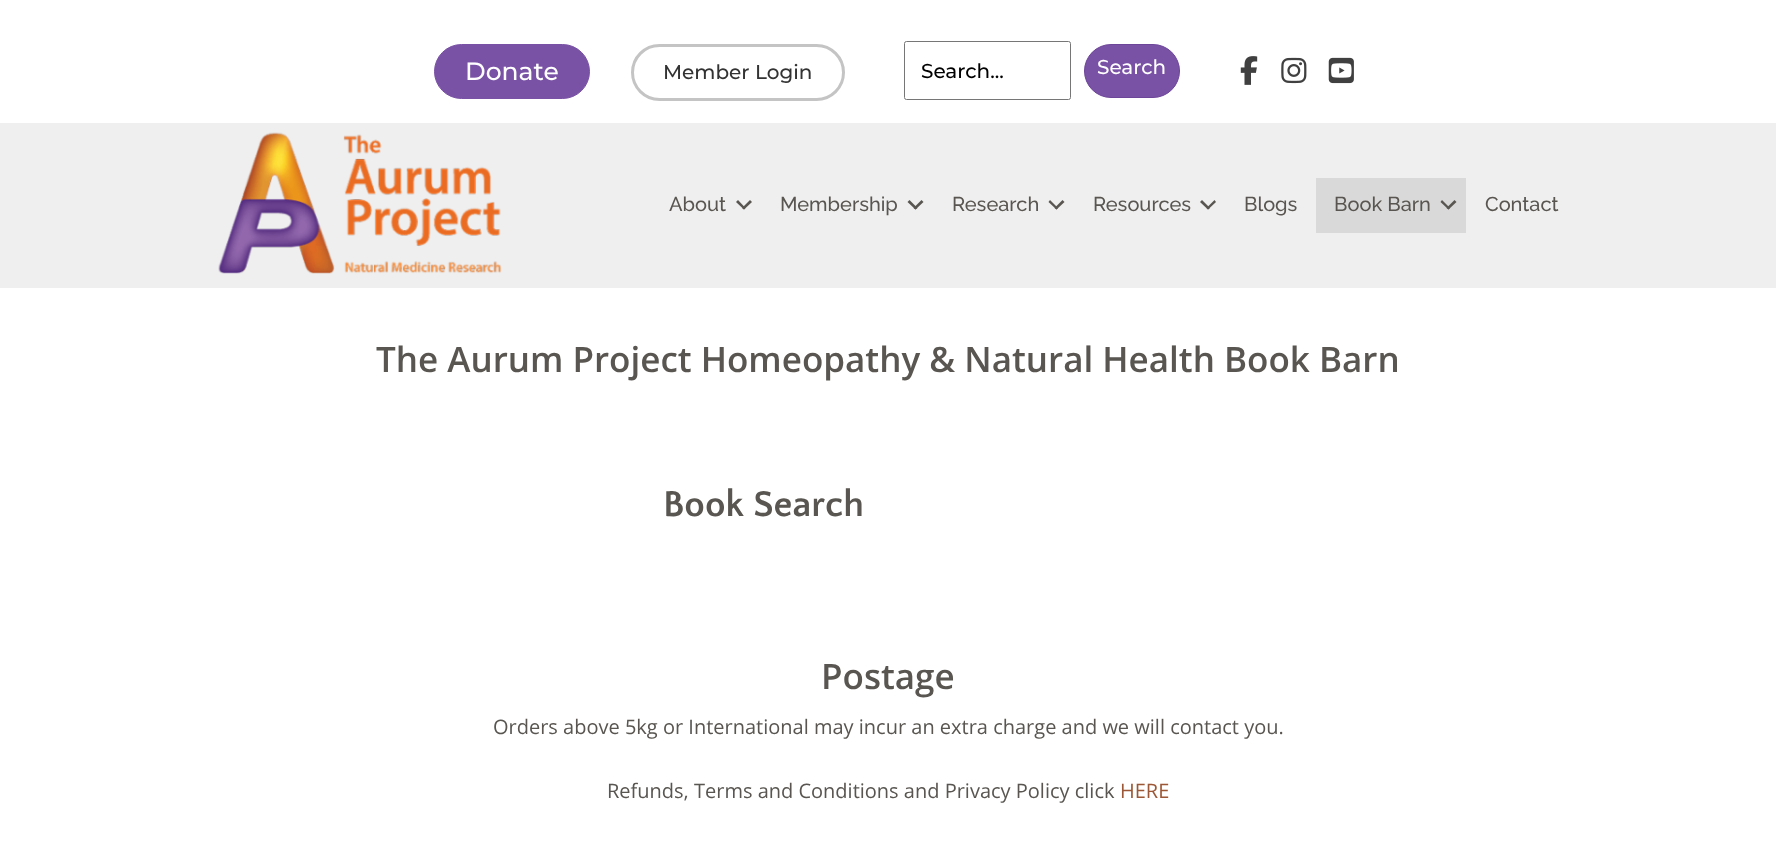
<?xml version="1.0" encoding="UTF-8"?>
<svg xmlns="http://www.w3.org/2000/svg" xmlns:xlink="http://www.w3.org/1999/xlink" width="1776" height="850">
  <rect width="100%" height="100%" fill="#ffffff" />
  <rect x="434.5" y="44.5" width="155" height="54" rx="27" fill="#7951a5" stroke="#7951a5" />
  <rect x="632.5" y="45.5" width="211" height="54" rx="27" fill="none" stroke="#c4c4c4" stroke-width="3" />
  <rect x="904.5" y="41.5" width="166" height="58" rx="2" fill="none" stroke="#767676" />
  <rect x="1084.5" y="44.5" width="95" height="53" rx="26.5" fill="#7951a5" stroke="#6d4599" />
  <image x="1240" y="56" width="18" height="29" xlink:href="image1.png" />
  <image x="1281" y="57" width="26" height="27" xlink:href="image2.png" />
  <image x="1328" y="57" width="26" height="27" xlink:href="image3.png" />
  <rect y="123" width="1776" height="165" fill="#efefef" />
  <image x="218" y="132" width="284" height="142" xlink:href="image4.png" />
  <path d="M 750 200 l 2 2 l -8 7.5 l -2 -1.5 z" fill="#595651" />
  <path d="M 738 200 l 7.5 8 l -1.5 1.5 l -8 -7.5 z" fill="#595651" />
  <path d="M 921.5 200 l 2 2 l -8 7.5 l -2 -1.5 z" fill="#595651" />
  <path d="M 909.5 200 l 8 8 l -2 1.5 l -8 -7.5 z" fill="#595651" />
  <path d="M 1062.5 200 l 2 2 l -8 7.5 l -2 -1.5 z" fill="#595651" />
  <path d="M 1050 200 l 8 8 l -1.5 1.5 l -8 -7.5 z" fill="#595651" />
  <path d="M 1214.5 200 l 1.5 2 l -8 7.5 l -1.5 -1.5 z" fill="#595651" />
  <path d="M 1202 200 l 8 8 l -2 1.5 l -8 -7.5 z" fill="#595651" />
  <rect x="1316" y="178" width="150" height="55" fill="#d9d9d9" />
  <path d="M 1454.5 200 l 2 2 l -8 7.5 l -2 -1.5 z" fill="#595651" />
  <path d="M 1442 200 l 8 8 l -1.5 1.5 l -8 -7.5 z" fill="#595651" />
  <text x="465" y="80" style="font-family: Montserrat; font-size: 25px; font-weight: 100; fill: #ffffff">Donate</text>
  <text x="663" y="79" style="font-family: Montserrat; font-size: 20px; font-weight: 100; fill: #333333">Member Login</text>
  <text x="921" y="78" style="font-family: Montserrat; font-size: 20px; font-weight: 100; fill: #000000">Search...</text>
  <text x="1097" y="74" style="font-family: Montserrat; font-size: 20px; font-weight: 100; fill: #ffffff">Search</text>
  <text x="669" y="211" style="font-family: Raleway; font-size: 20px; font-weight: 100; fill: #595651">About</text>
  <text x="780" y="211" style="font-family: Raleway; font-size: 20px; font-weight: 100; fill: #595651">Membership</text>
  <text x="952" y="211" style="font-family: Raleway; font-size: 20px; font-weight: 100; fill: #595651">Research</text>
  <text x="1093" y="211" style="font-family: Raleway; font-size: 20px; font-weight: 100; fill: #595651">Resources</text>
  <text x="1244" y="211" style="font-family: Raleway; font-size: 20px; font-weight: 100; fill: #595651">Blogs</text>
  <text x="1334" y="211" style="font-family: Raleway; font-size: 20px; font-weight: 100; fill: #595651">Book Barn</text>
  <text x="1485" y="211" style="font-family: Raleway; font-size: 20px; font-weight: 100; fill: #595651">Contact</text>
  <text x="376" y="372" style="font-family: Open Sans; font-size: 35px; font-weight: 600; fill: #595651">The Aurum Project Homeopathy &amp; Natural Health Book Barn</text>
  <text x="663" y="516" style="font-family: Quattrocento Sans; font-size: 37.5px; font-weight: bold; fill: #595651">Book Search</text>
  <text x="821" y="689" style="font-family: Open Sans; font-size: 35px; font-weight: 600; fill: #595651">Postage</text>
  <text x="493" y="734" style="font-family: Open Sans; font-size: 20px; fill: #595651">Orders above 5kg or International may incur an extra charge and we will contact you.</text>
  <text x="607" y="798" style="font-family: Open Sans; font-size: 20px; fill: #595651">Refunds, Terms and Conditions and Privacy Policy click</text>
  <text x="1120" y="798" style="font-family: Open Sans; font-size: 20px; fill: #9c5836">HERE</text>
</svg>
